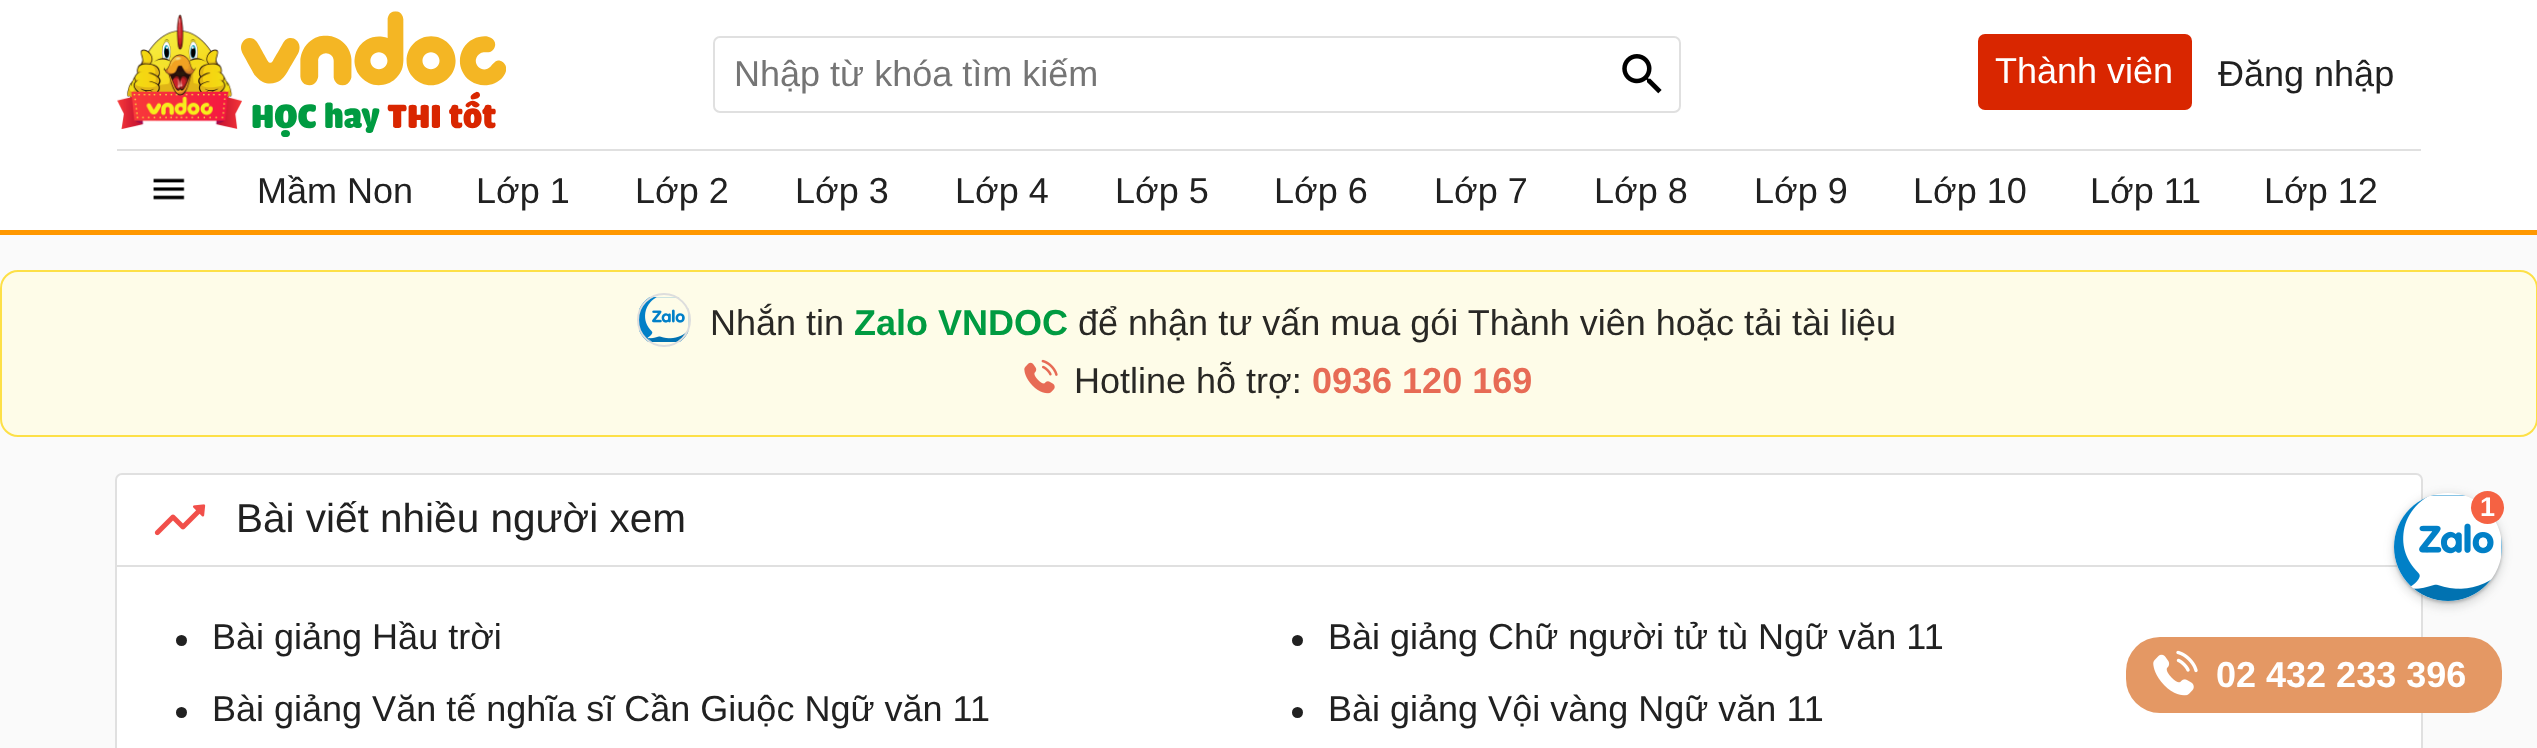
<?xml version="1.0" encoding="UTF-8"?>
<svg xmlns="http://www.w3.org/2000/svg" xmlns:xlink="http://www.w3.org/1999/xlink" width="2537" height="748">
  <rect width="100%" height="100%" fill="#fafafa" />
  <rect width="2537" height="230" fill="#ffffff" />
  <image x="117" y="11" width="389" height="126" xlink:href="image1.png" />
  <rect x="714" y="37" width="966" height="75" rx="6" fill="none" stroke="#e0e0e0" stroke-width="2" />
  <image x="1622" y="54" width="40" height="40" xlink:href="image2.png" />
  <rect x="1978" y="34" width="214" height="76" rx="7" fill="#d92600" />
  <rect y="230" width="2537" height="5" fill="#ff9800" />
  <rect x="117" y="149" width="2304" height="2" fill="#e0e0e0" />
  <image x="153" y="178" width="32" height="22" xlink:href="image3.png" />
  <rect x="1" y="271" width="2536" height="165" rx="17" fill="#fefce8" stroke="#fde047" stroke-width="2" />
  <image x="639" y="297" width="50" height="45" xlink:href="image4.png" />
  <circle cx="664" cy="320" r="26" fill="none" stroke="#dddddd" stroke-width="2" />
  <image x="1024" y="359" width="34" height="35" xlink:href="image5.png" />
  <rect x="116" y="474" width="2306" height="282" rx="6" fill="#ffffff" stroke="#e0e0e0" stroke-width="2" />
  <rect x="117" y="565" width="2281" height="2" fill="#e0e0e0" />
  <image x="154" y="504" width="52" height="32" xlink:href="image6.png" />
  <circle cx="181.5" cy="640.5" r="5.5" fill="#212121" />
  <circle cx="1297.5" cy="640.5" r="5.5" fill="#212121" />
  <circle cx="181.5" cy="712.5" r="5.5" fill="#212121" />
  <circle cx="1297.5" cy="712.5" r="5.5" fill="#212121" />
  <rect x="2392" y="493" width="112" height="115" rx="56" fill="#3c4043" fill-opacity="0.15" filter="blur(4px)" />
  <rect x="2394" y="495" width="108" height="108" rx="54" fill="#3c4043" fill-opacity="0.3" filter="blur(1.5px)" />
  <circle cx="2448" cy="547" r="54" fill="#ffffff" />
  <image x="2394" y="495" width="108" height="106" xlink:href="image7.png" />
  <circle cx="2487.5" cy="507.5" r="16.5" fill="#f56243" />
  <rect x="2126" y="637" width="376" height="76" rx="34" fill="#e49864" />
  <image x="2153" y="650" width="45" height="46" xlink:href="image8.png" />
  <text x="734" y="86" style="font-family: Liberation Sans; font-size: 36px; fill: #757575">Nhập từ khóa tìm kiếm</text>
  <text x="1995" y="83" style="font-family: Liberation Sans; font-size: 36px; fill: #ffffff">Thành viên</text>
  <text x="2218" y="86" style="font-family: Liberation Sans; font-size: 36px; fill: #212121">Đăng nhập</text>
  <text x="257" y="203" style="font-family: Liberation Sans; font-size: 36px; fill: #212121">Mầm Non</text>
  <text x="476" y="203" style="font-family: Liberation Sans; font-size: 36px; fill: #212121">Lớp 1</text>
  <text x="635" y="203" style="font-family: Liberation Sans; font-size: 36px; fill: #212121">Lớp 2</text>
  <text x="795" y="203" style="font-family: Liberation Sans; font-size: 36px; fill: #212121">Lớp 3</text>
  <text x="955" y="203" style="font-family: Liberation Sans; font-size: 36px; fill: #212121">Lớp 4</text>
  <text x="1115" y="203" style="font-family: Liberation Sans; font-size: 36px; fill: #212121">Lớp 5</text>
  <text x="1274" y="203" style="font-family: Liberation Sans; font-size: 36px; fill: #212121">Lớp 6</text>
  <text x="1434" y="203" style="font-family: Liberation Sans; font-size: 36px; fill: #212121">Lớp 7</text>
  <text x="1594" y="203" style="font-family: Liberation Sans; font-size: 36px; fill: #212121">Lớp 8</text>
  <text x="1754" y="203" style="font-family: Liberation Sans; font-size: 36px; fill: #212121">Lớp 9</text>
  <text x="1913" y="203" style="font-family: Liberation Sans; font-size: 36px; fill: #212121">Lớp 10</text>
  <text x="2090" y="203" style="font-family: Liberation Sans; font-size: 36px; fill: #212121">Lớp 11</text>
  <text x="2264" y="203" style="font-family: Liberation Sans; font-size: 36px; fill: #212121">Lớp 12</text>
  <text x="710" y="335" style="font-family: Liberation Sans; font-size: 36px; fill: #292825">Nhắn tin</text>
  <text x="854" y="335" style="font-family: Liberation Sans; font-size: 36px; font-weight: bold; fill: #009b41">Zalo VNDOC</text>
  <text x="1078" y="335" style="font-family: Liberation Sans; font-size: 36px; fill: #292825">để nhận tư vấn mua gói Thành viên hoặc tải tài liệu</text>
  <text x="1074" y="393" style="font-family: Liberation Sans; font-size: 36px; fill: #292825">Hotline hỗ trợ:</text>
  <text x="1312" y="393" style="font-family: Liberation Sans; font-size: 36px; font-weight: bold; fill: #e76b55">0936 120 169</text>
  <text x="236" y="532" style="font-family: Liberation Sans; font-size: 40.5px; fill: #212121">Bài viết nhiều người xem</text>
  <text x="212" y="649" style="font-family: Liberation Sans; font-size: 36px; fill: #212121">Bài giảng Hầu trời</text>
  <text x="1328" y="649" style="font-family: Liberation Sans; font-size: 36px; fill: #212121">Bài giảng Chữ người tử tù Ngữ văn 11</text>
  <text x="212" y="721" style="font-family: Liberation Sans; font-size: 36px; fill: #212121">Bài giảng Văn tế nghĩa sĩ Cần Giuộc Ngữ văn 11</text>
  <text x="1328" y="721" style="font-family: Liberation Sans; font-size: 36px; fill: #212121">Bài giảng Vội vàng Ngữ văn 11</text>
  <text x="2480" y="516" style="font-family: Liberation Sans; font-size: 27px; font-weight: bold; fill: #ffffff">1</text>
  <text x="2216" y="687" style="font-family: Liberation Sans; font-size: 36px; font-weight: bold; fill: #ffffff">02 432 233 396</text>
</svg>
